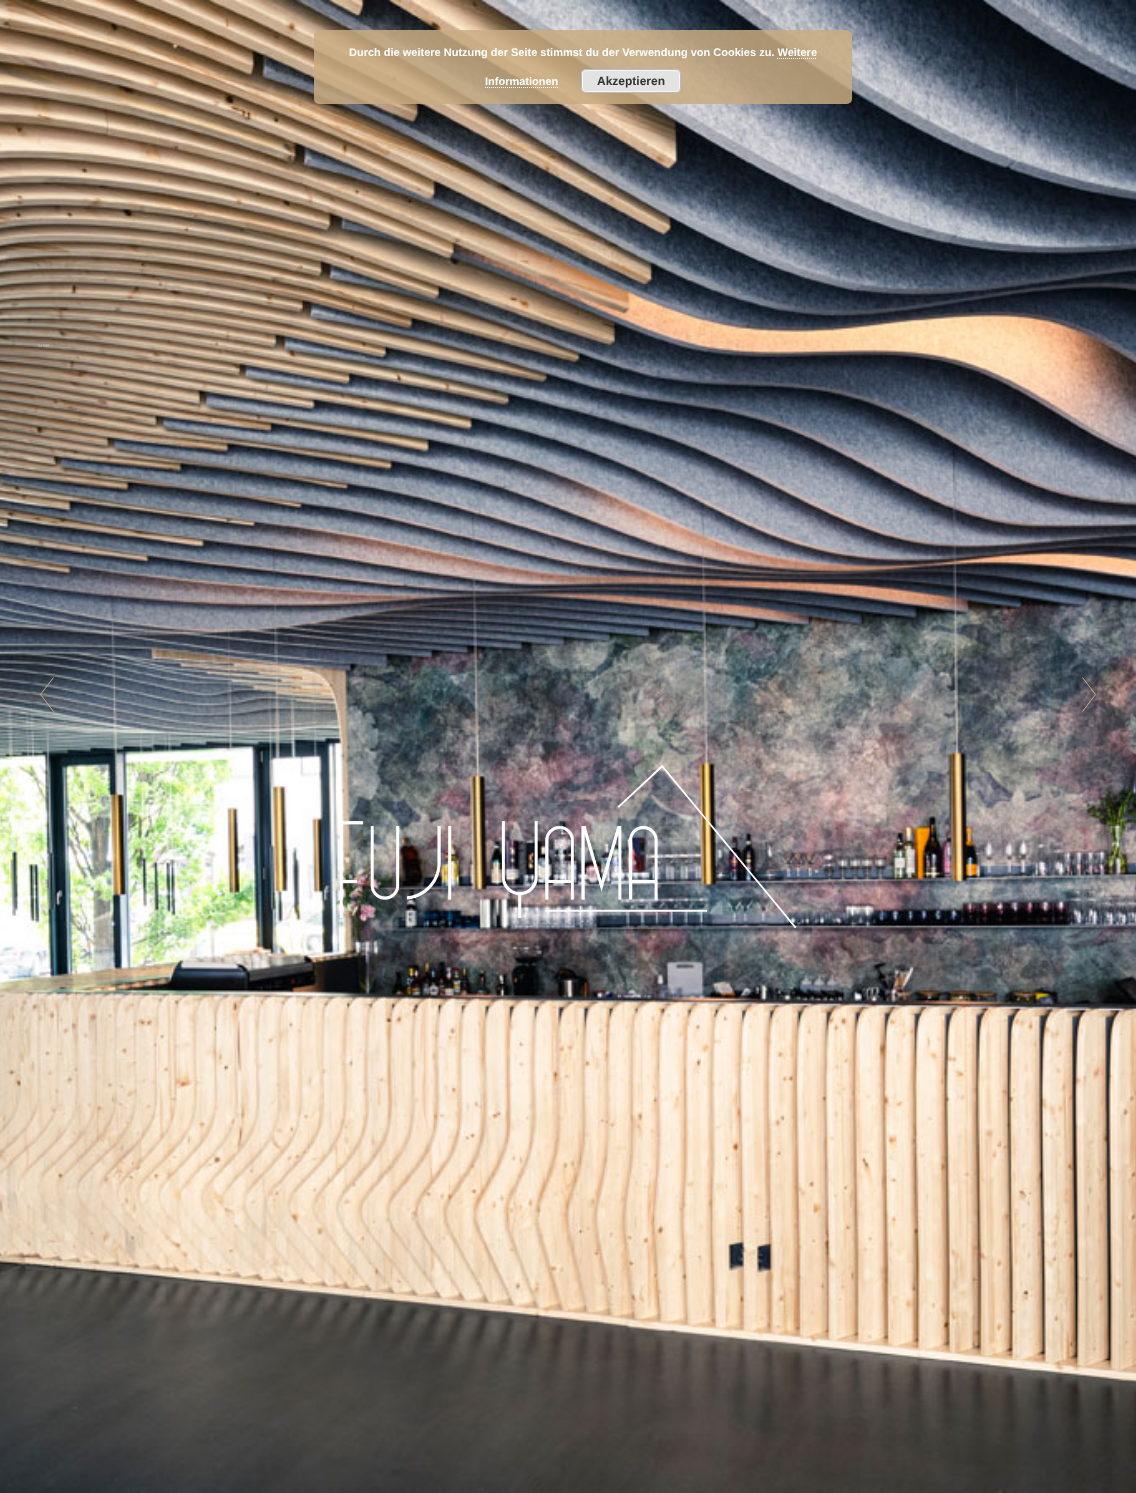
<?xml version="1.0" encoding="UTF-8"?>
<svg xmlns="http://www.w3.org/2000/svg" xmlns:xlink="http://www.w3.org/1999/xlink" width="1136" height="1493">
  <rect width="100%" height="100%" fill="#ffffff" />
  <image x="0" y="0" width="1136" height="1493" xlink:href="image1.png" />
  <image x="37" y="342" width="17" height="6" xlink:href="image2.png" />
  <image x="339" y="765" width="458" height="163" xlink:href="image3.png" />
  <path d="M 53.5 711.5 l -13 -17 l 13 -17" fill="none" stroke="#c9ab81" />
  <path d="M 1082.5 711.5 l 13 -17 l -13 -17" fill="none" stroke="#c9ab81" />
  <rect x="314" y="30" width="538" height="74" rx="5" fill="#c9ab81" fill-opacity="0.85" />
  <path d="M 777 58.5 h 40" fill="none" stroke="#ffffff" stroke-dasharray="1 1" />
  <path d="M 485 87.5 h 73" fill="none" stroke="#ffffff" stroke-dasharray="1 1" />
  <rect x="581" y="69" width="100" height="24" rx="5" fill="#e3e3e3" />
  <rect x="582.5" y="70.5" width="97" height="21" rx="3.5" fill="none" stroke="#f6f6f6" />
  <rect x="581.5" y="69.5" width="99" height="23" rx="4.5" fill="none" stroke="#bbbbbb" />
  <text x="349" y="56" style="font-family: Liberation Sans; font-size: 11px; font-weight: bold; fill: #ffffff">Durch die weitere Nutzung der Seite stimmst du der Verwendung von Cookies zu. Weitere</text>
  <text x="485" y="85" style="font-family: Liberation Sans; font-size: 11px; font-weight: bold; fill: #ffffff">Informationen</text>
  <text x="597" y="85" style="font-family: Liberation Sans; font-size: 12px; font-weight: bold; fill: #333333">Akzeptieren</text>
</svg>
